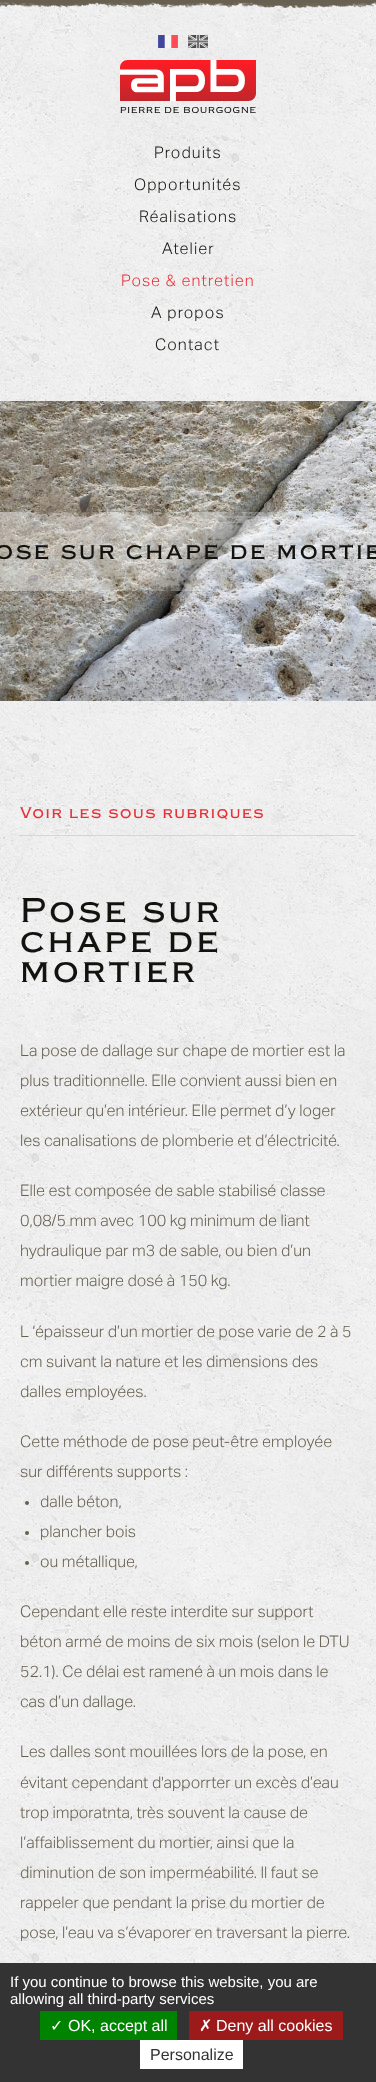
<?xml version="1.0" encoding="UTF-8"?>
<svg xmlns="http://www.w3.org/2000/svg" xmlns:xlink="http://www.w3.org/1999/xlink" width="376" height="2082">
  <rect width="100%" height="100%" fill="#ffffff" />
  <image x="0" y="2" width="376" height="1961" xlink:href="image2.png" />
  <image x="0" y="0" width="376" height="8" xlink:href="image1.png" />
  <image x="158" y="35" width="20" height="13" xlink:href="image3.png" />
  <image x="188" y="35" width="20" height="13" xlink:href="image4.png" />
  <image x="120" y="60" width="136" height="41" xlink:href="image5.png" />
  <image x="0" y="401" width="376" height="300" xlink:href="image6.png" />
  <image x="0" y="512" width="376" height="79" xlink:href="image7.png" />
  <rect x="20" y="835" width="336" height="1" fill="#c7af83" fill-opacity="0.4" />
  <circle cx="27" cy="1503" r="2" fill="#676050" />
  <circle cx="27" cy="1533" r="2" fill="#676050" />
  <circle cx="27" cy="1563" r="2" fill="#676050" />
  <rect y="1963" width="376" height="119" fill="#333333" />
  <rect x="40" y="2011" width="137" height="29" fill="#008300" />
  <rect x="189" y="2011" width="154" height="29" fill="#9c1a1a" />
  <rect x="140" y="2040" width="103" height="29" fill="#ffffff" />
  <text x="120" y="113" style="font-family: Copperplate; font-size: 9px; font-weight: 500; letter-spacing: 0.9px; fill: #13120e">PIERRE DE BOURGOGNE</text>
  <text x="154" y="158" style="font-family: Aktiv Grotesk; font-size: 16px; font-weight: 300; letter-spacing: 1.1px; fill: #13120e">Produits</text>
  <text x="134" y="190" style="font-family: Aktiv Grotesk; font-size: 16px; font-weight: 300; letter-spacing: 1.1px; fill: #13120e">Opportunités</text>
  <text x="139" y="222" style="font-family: Aktiv Grotesk; font-size: 16px; font-weight: 300; letter-spacing: 1.1px; fill: #13120e">Réalisations</text>
  <text x="162" y="254" style="font-family: Aktiv Grotesk; font-size: 16px; font-weight: 300; letter-spacing: 1.1px; fill: #13120e">Atelier</text>
  <text x="121" y="286" style="font-family: Aktiv Grotesk; font-size: 16px; font-weight: 300; letter-spacing: 1.1px; fill: #e92e36">Pose &amp; entretien</text>
  <text x="151" y="318" style="font-family: Aktiv Grotesk; font-size: 16px; font-weight: 300; letter-spacing: 1.1px; fill: #13120e">A propos</text>
  <text x="155" y="350" style="font-family: Aktiv Grotesk; font-size: 16px; font-weight: 300; letter-spacing: 1.1px; fill: #13120e">Contact</text>
  <text x="-5" y="559" style="font-family: Copperplate; font-size: 25.25px; font-weight: 500; letter-spacing: 2.5px; fill: #13120e">ose sur chape de mortie</text>
  <text x="20" y="818" style="font-family: Copperplate; font-size: 16px; font-weight: 500; letter-spacing: 1.6px; fill: #e92e36">Voir les sous rubriques</text>
  <text x="20" y="922" style="font-family: Copperplate; font-size: 36px; font-weight: 500; letter-spacing: 3.5px; fill: #13120e">Pose sur</text>
  <text x="20" y="952" style="font-family: Copperplate; font-size: 36px; font-weight: 500; letter-spacing: 3.5px; fill: #13120e">chape de</text>
  <text x="20" y="982" style="font-family: Copperplate; font-size: 36px; font-weight: 500; letter-spacing: 3.5px; fill: #13120e">mortier</text>
  <text x="20" y="1056" style="font-family: Aktiv Grotesk; font-size: 16px; font-weight: 300; fill: #676050">La pose de dallage sur chape de mortier est la</text>
  <text x="20" y="1086" style="font-family: Aktiv Grotesk; font-size: 16px; font-weight: 300; fill: #676050">plus traditionnelle. Elle convient aussi bien en</text>
  <text x="20" y="1116" style="font-family: Aktiv Grotesk; font-size: 16px; font-weight: 300; fill: #676050">extérieur qu’en intérieur. Elle permet d’y loger</text>
  <text x="20" y="1146" style="font-family: Aktiv Grotesk; font-size: 16px; font-weight: 300; fill: #676050">les canalisations de plomberie et d’électricité.</text>
  <text x="20" y="1196" style="font-family: Aktiv Grotesk; font-size: 16px; font-weight: 300; fill: #676050">Elle est composée de sable stabilisé classe</text>
  <text x="20" y="1226" style="font-family: Aktiv Grotesk; font-size: 16px; font-weight: 300; fill: #676050">0,08/5 mm avec 100 kg minimum de liant</text>
  <text x="20" y="1256" style="font-family: Aktiv Grotesk; font-size: 16px; font-weight: 300; fill: #676050">hydraulique par m3 de sable, ou bien d’un</text>
  <text x="20" y="1286" style="font-family: Aktiv Grotesk; font-size: 16px; font-weight: 300; fill: #676050">mortier maigre dosé à 150 kg.</text>
  <text x="20" y="1337" style="font-family: Aktiv Grotesk; font-size: 16px; font-weight: 300; fill: #676050">L ‘épaisseur d’un mortier de pose varie de 2 à 5</text>
  <text x="20" y="1367" style="font-family: Aktiv Grotesk; font-size: 16px; font-weight: 300; fill: #676050">cm suivant la nature et les dimensions des</text>
  <text x="20" y="1397" style="font-family: Aktiv Grotesk; font-size: 16px; font-weight: 300; fill: #676050">dalles employées.</text>
  <text x="20" y="1447" style="font-family: Aktiv Grotesk; font-size: 16px; font-weight: 300; fill: #676050">Cette méthode de pose peut-être employée</text>
  <text x="20" y="1477" style="font-family: Aktiv Grotesk; font-size: 16px; font-weight: 300; fill: #676050">sur différents supports :</text>
  <text x="40" y="1507" style="font-family: Aktiv Grotesk; font-size: 16px; font-weight: 300; fill: #676050">dalle béton,</text>
  <text x="40" y="1537" style="font-family: Aktiv Grotesk; font-size: 16px; font-weight: 300; fill: #676050">plancher bois</text>
  <text x="40" y="1567" style="font-family: Aktiv Grotesk; font-size: 16px; font-weight: 300; fill: #676050">ou métallique,</text>
  <text x="20" y="1617" style="font-family: Aktiv Grotesk; font-size: 16px; font-weight: 300; fill: #676050">Cependant elle reste interdite sur support</text>
  <text x="20" y="1647" style="font-family: Aktiv Grotesk; font-size: 16px; font-weight: 300; fill: #676050">béton armé de moins de six mois (selon le DTU</text>
  <text x="20" y="1677" style="font-family: Aktiv Grotesk; font-size: 16px; font-weight: 300; fill: #676050">52.1). Ce délai est ramené à un mois dans le</text>
  <text x="20" y="1707" style="font-family: Aktiv Grotesk; font-size: 16px; font-weight: 300; fill: #676050">cas d’un dallage.</text>
  <text x="20" y="1757" style="font-family: Aktiv Grotesk; font-size: 16px; font-weight: 300; fill: #676050">Les dalles sont mouillées lors de la pose, en</text>
  <text x="20" y="1788" style="font-family: Aktiv Grotesk; font-size: 16px; font-weight: 300; fill: #676050">évitant cependant d'apporrter un excès d’eau</text>
  <text x="20" y="1818" style="font-family: Aktiv Grotesk; font-size: 16px; font-weight: 300; fill: #676050">trop imporatnta, très souvent la cause de</text>
  <text x="20" y="1848" style="font-family: Aktiv Grotesk; font-size: 16px; font-weight: 300; fill: #676050">l’affaiblissement du mortier, ainsi que la</text>
  <text x="20" y="1878" style="font-family: Aktiv Grotesk; font-size: 16px; font-weight: 300; fill: #676050">diminution de son imperméabilité. Il faut se</text>
  <text x="20" y="1908" style="font-family: Aktiv Grotesk; font-size: 16px; font-weight: 300; fill: #676050">rappeler que pendant la prise du mortier de</text>
  <text x="20" y="1938" style="font-family: Aktiv Grotesk; font-size: 16px; font-weight: 300; fill: #676050">pose, l’eau va s’évaporer en traversant la pierre.</text>
  <text x="10" y="1987" style="font-family: Liberation Sans; font-size: 15px; fill: #ffffff">If you continue to browse this website, you are</text>
  <text x="10" y="2004" style="font-family: Liberation Sans; font-size: 15px; fill: #ffffff">allowing all third-party services</text>
  <text x="50" y="2031" style="font-family: DejaVu Sans; font-size: 16px; fill: #ffffff">✓</text>
  <text x="68" y="2031" style="font-family: Liberation Sans; font-size: 16px; fill: #ffffff">OK, accept all</text>
  <text x="199" y="2031" style="font-family: DejaVu Sans; font-size: 16px; fill: #ffffff">✗</text>
  <text x="216" y="2031" style="font-family: Liberation Sans; font-size: 16px; fill: #ffffff">Deny all cookies</text>
  <text x="150" y="2060" style="font-family: Liberation Sans; font-size: 16px; fill: #333333">Personalize</text>
</svg>
